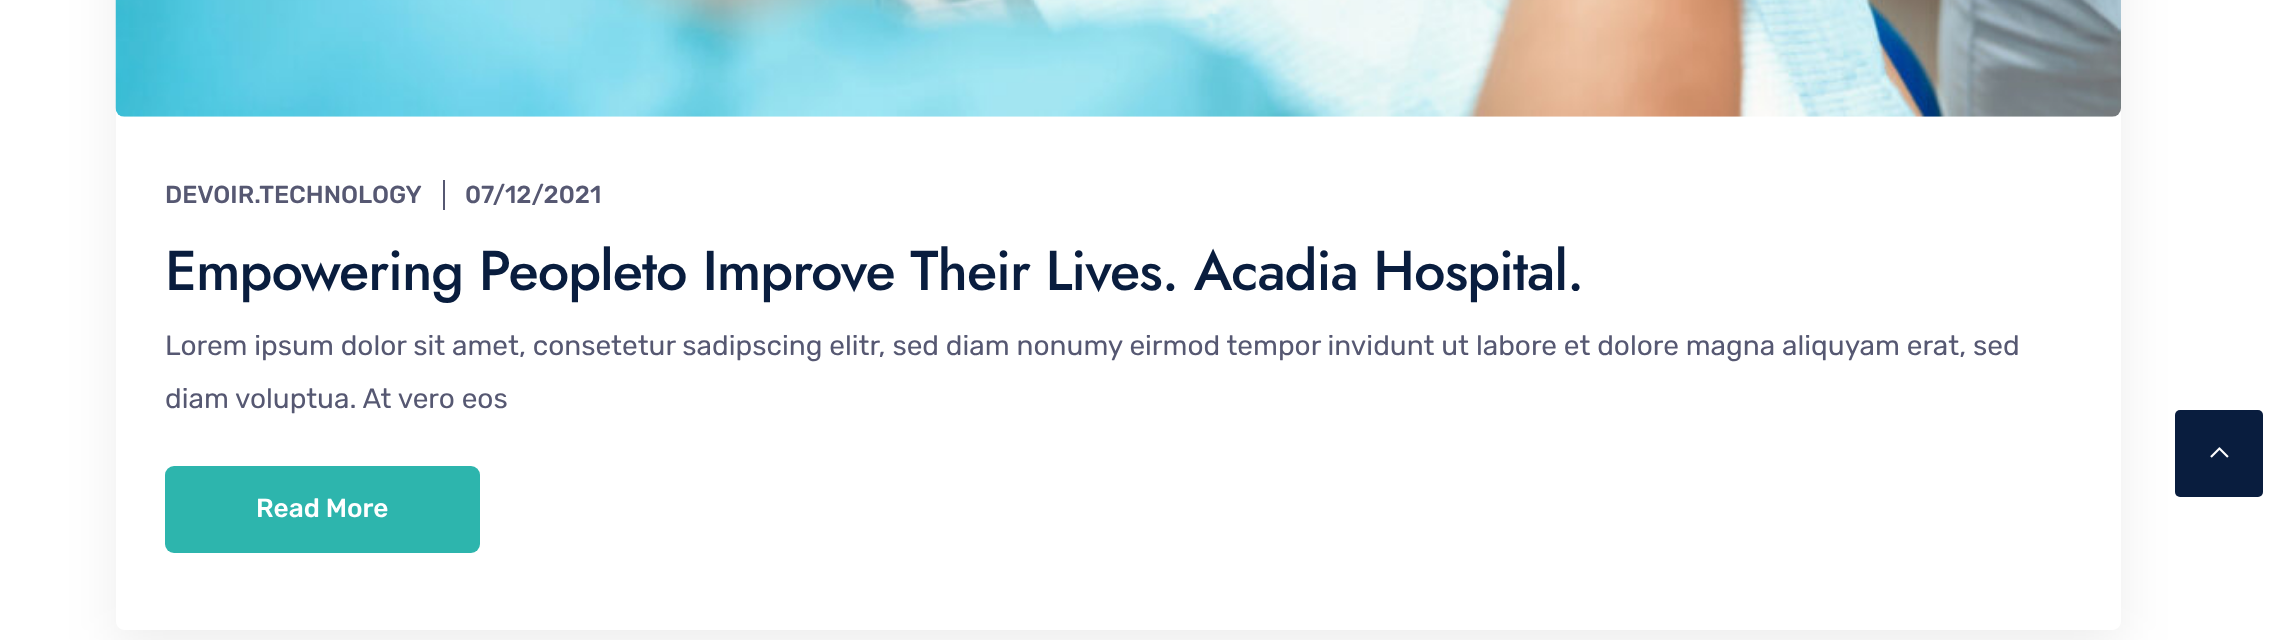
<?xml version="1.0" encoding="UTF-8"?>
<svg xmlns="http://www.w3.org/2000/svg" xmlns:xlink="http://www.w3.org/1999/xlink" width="2288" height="640">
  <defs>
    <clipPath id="clip1"><path d="M 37 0 h 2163 v 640 h -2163 z m 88 -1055 h 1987 c 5 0 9 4 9 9 v 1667 c 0 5 -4 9 -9 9 h -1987 c -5 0 -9 -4 -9 -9 v -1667 c 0 -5 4 -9 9 -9 z" clip-rule="evenodd" /></clipPath>
  </defs>
  <rect width="100%" height="100%" fill="#ffffff" />
  <g clip-path="url(#clip1)">
    <rect x="116" y="-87" width="2005" height="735" rx="9" fill="#000000" fill-opacity="0.07" filter="blur(26px)" />
  </g>
  <image x="115" y="0" width="2006" height="117" xlink:href="image1.png" />
  <rect x="443" y="180" width="2" height="30" fill="#565872" />
  <rect x="165" y="466" width="315" height="87" rx="9" fill="#2db5ad" />
  <rect x="2175" y="410" width="88" height="87" rx="5" fill="#091d3e" />
  <image x="2210" y="447" width="19" height="11" xlink:href="image2.png" />
  <text x="165" y="203" style="font-family: Rubik; font-size: 24.5px; font-weight: 500; fill: #565872">DEVOIR.TECHNOLOGY</text>
  <text x="465" y="203" style="font-family: Rubik; font-size: 24.5px; font-weight: 500; fill: #565872">07/12/2021</text>
  <text x="165" y="290" style="font-family: Jost; font-size: 56px; font-weight: 500; letter-spacing: -1.05px; fill: #091d3e">Empowering Peopleto Improve Their Lives. Acadia Hospital.</text>
  <text x="165" y="355" style="font-family: Rubik; font-size: 28px; fill: #565872">Lorem ipsum dolor sit amet, consetetur sadipscing elitr, sed diam nonumy eirmod tempor invidunt ut labore et dolore magna aliquyam erat, sed</text>
  <text x="165" y="408" style="font-family: Rubik; font-size: 28px; fill: #565872">diam voluptua. At vero eos</text>
  <text x="256" y="517" style="font-family: Rubik; font-size: 26.25px; font-weight: 500; fill: #ffffff">Read More</text>
</svg>
